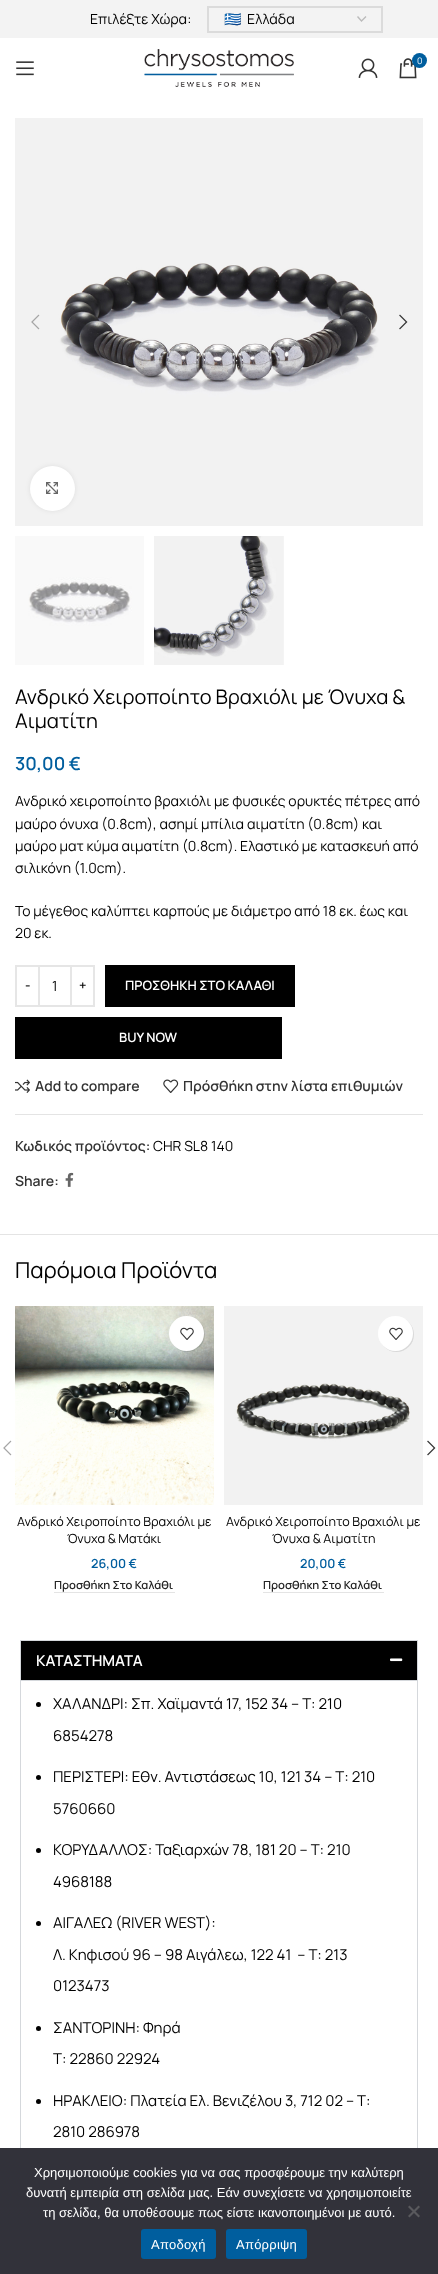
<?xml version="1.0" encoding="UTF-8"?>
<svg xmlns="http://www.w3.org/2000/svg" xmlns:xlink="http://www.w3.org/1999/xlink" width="438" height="2274">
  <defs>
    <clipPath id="clip1"><rect x="224" y="8" width="127" height="22" /></clipPath>
  </defs>
  <rect width="100%" height="100%" fill="#ffffff" />
  <rect width="438" height="38" fill="#f3f3f3" />
  <path d="M 357.5 16.5 l 4 4.5 l 4.5 -4.5" fill="none" stroke="#bbbbbb" stroke-width="1.4" />
  <rect x="208" y="7" width="174" height="25" fill="none" stroke="#dbdbdb" stroke-width="2" />
  <image x="16" y="61" width="18" height="15" xlink:href="image1.png" />
  <image x="144" y="49" width="150" height="38" xlink:href="image2.png" />
  <image x="358" y="58" width="20" height="20" xlink:href="image3.png" />
  <image x="399" y="58" width="18" height="21" xlink:href="image4.png" />
  <circle cx="419.5" cy="60.5" r="7.5" fill="#005e9e" />
  <image x="15" y="118" width="408" height="408" xlink:href="image5.png" />
  <image x="31" y="314" width="9" height="16" xlink:href="image6.png" />
  <image x="399" y="314" width="9" height="16" xlink:href="image7.png" />
  <rect x="30" y="466" width="45" height="45" rx="22.5" fill="#000000" fill-opacity="0.08" filter="blur(2.5px)" />
  <circle cx="52.5" cy="488.5" r="22.5" fill="#ffffff" />
  <image x="46" y="482" width="12" height="12" xlink:href="image8.png" />
  <image x="15" y="536" width="129" height="129" xlink:href="image9.png" />
  <image x="154" y="536" width="130" height="129" xlink:href="image10.png" />
  <rect x="16" y="966" width="23" height="40" fill="none" stroke="#e6e6e6" stroke-width="2" />
  <rect x="40" y="965" width="30" height="2" fill="#e5e5e5" />
  <rect x="40" y="1005" width="30" height="2" fill="#e5e5e5" />
  <rect x="71" y="966" width="23" height="40" fill="none" stroke="#e6e6e6" stroke-width="2" />
  <rect x="105" y="965" width="190" height="42" fill="#000000" />
  <rect x="15" y="1017" width="267" height="42" fill="#000000" />
  <image x="15" y="1079" width="15" height="14" xlink:href="image11.png" />
  <image x="163" y="1079" width="16" height="14" xlink:href="image12.png" />
  <rect x="15" y="1114" width="408" height="1" fill="#e4e4e4" />
  <image x="65" y="1172" width="9" height="15" xlink:href="image13.png" />
  <rect y="1234" width="438" height="1" fill="#e4e4e4" />
  <image x="3" y="1440" width="9" height="16" xlink:href="image14.png" />
  <image x="427" y="1440" width="9" height="16" xlink:href="image15.png" />
  <image x="15" y="1306" width="199" height="199" xlink:href="image16.png" />
  <rect x="170" y="1317" width="35" height="35" rx="17.5" fill="#000000" fill-opacity="0.1" filter="blur(0.5px)" />
  <circle cx="186.5" cy="1333.5" r="17.5" fill="#ffffff" />
  <image x="180" y="1327" width="14" height="13" xlink:href="image17.png" />
  <rect x="54" y="1592" width="121" height="1" fill="#e4e4e4" />
  <image x="224" y="1306" width="199" height="199" xlink:href="image18.png" />
  <rect x="379" y="1317" width="35" height="35" rx="17.5" fill="#000000" fill-opacity="0.1" filter="blur(0.5px)" />
  <circle cx="395.5" cy="1333.5" r="17.5" fill="#ffffff" />
  <image x="389" y="1327" width="14" height="13" xlink:href="image17.png" />
  <rect x="263" y="1592" width="121" height="1" fill="#e4e4e4" />
  <rect x="20.5" y="1640.5" width="397" height="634" fill="none" stroke="#d5d8dc" />
  <rect x="21" y="1641" width="396" height="39" fill="#000000" />
  <image x="390" y="1658" width="13" height="4" xlink:href="image19.png" />
  <rect x="21" y="1680" width="396" height="1" fill="#d5d8dc" />
  <circle cx="38.5" cy="1704.5" r="2.5" fill="#000000" />
  <circle cx="38.5" cy="1777.5" r="2.5" fill="#000000" />
  <circle cx="38.5" cy="1850.5" r="2.5" fill="#000000" />
  <circle cx="38.5" cy="1923.5" r="2.5" fill="#000000" />
  <circle cx="38.5" cy="2028.5" r="2.5" fill="#000000" />
  <circle cx="38.5" cy="2101.5" r="2.5" fill="#000000" />
  <rect y="2148" width="438" height="126" fill="#32323a" />
  <path d="M 418.5 2205.5 l 1.5 1.5 l -10.5 10.5 l -1.5 -1.5 z" fill="#59595d" />
  <path d="M 408 2207 l 1.5 -1.5 l 10.5 10.5 l -1.5 1.5 z" fill="#59595d" />
  <rect x="141" y="2229" width="75" height="30" rx="3" fill="#005e9e" />
  <rect x="226" y="2229" width="81" height="30" rx="3" fill="#005e9e" />
  <text x="90" y="24" style="font-family: Manrope; font-size: 14px; fill: #000000">Επιλέξτε Χώρα:</text>
  <g clip-path="url(#clip1)">
    <text x="224" y="24" style="font-family: Noto Color Emoji; font-size: 14px; fill: #000000">🇬🇷</text>
  </g>
  <text x="247" y="24" style="font-family: Manrope; font-size: 14px; fill: #000000">Ελλάδα</text>
  <text x="417" y="64" style="font-family: Manrope; font-size: 9px; fill: #ffffff">0</text>
  <text x="15" y="704" style="font-family: Manrope; font-size: 20px; fill: #000000">Ανδρικό Χειροποίητο Βραχιόλι με Όνυχα &amp;</text>
  <text x="15" y="728" style="font-family: Manrope; font-size: 20px; fill: #000000">Αιματίτη</text>
  <text x="15" y="770" style="font-family: Manrope; font-size: 18px; font-weight: 600; fill: #005e9e">30,00 €</text>
  <text x="15" y="806" style="font-family: Manrope; font-size: 14px; fill: #000000">Ανδρικό χειροποίητο βραχιόλι με φυσικές ορυκτές πέτρες από</text>
  <text x="15" y="829" style="font-family: Manrope; font-size: 14px; fill: #000000">μαύρο όνυχα (0.8cm), ασημί μπίλια αιματίτη (0.8cm) και</text>
  <text x="15" y="851" style="font-family: Manrope; font-size: 14px; fill: #000000">μαύρο ματ κύμα αιματίτη (0.8cm). Ελαστικό με κατασκευή από</text>
  <text x="15" y="873" style="font-family: Manrope; font-size: 14px; fill: #000000">σιλικόνη (1.0cm).</text>
  <text x="15" y="916" style="font-family: Manrope; font-size: 14px; fill: #000000">Το μέγεθoς καλύπτει καρπούς με διάμετρο από 18 εκ. έως και</text>
  <text x="15" y="938" style="font-family: Manrope; font-size: 14px; fill: #000000">20 εκ.</text>
  <text x="25" y="990" style="font-family: Manrope; font-size: 13px; font-weight: 600; fill: #000000">-</text>
  <text x="52" y="991" style="font-family: Manrope; font-size: 14px; fill: #000000">1</text>
  <text x="79" y="990" style="font-family: Manrope; font-size: 13px; font-weight: 600; fill: #000000">+</text>
  <text x="125" y="990" style="font-family: Manrope; font-size: 13px; font-weight: 600; fill: #ffffff">ΠΡΟΣΘΗΚΗ ΣΤΟ ΚΑΛΑΘΙ</text>
  <text x="119" y="1042" style="font-family: Manrope; font-size: 13px; font-weight: 600; fill: #ffffff">BUY NOW</text>
  <text x="35" y="1091" style="font-family: Manrope; font-size: 14px; font-weight: 600; fill: #333333">Add to compare</text>
  <text x="183" y="1091" style="font-family: Manrope; font-size: 14px; font-weight: 600; fill: #333333">Πρόσθήκη στην λίστα επιθυμιών</text>
  <text x="15" y="1151" style="font-family: Manrope; font-size: 14px; font-weight: 600; fill: #333333">Κωδικός προϊόντος:</text>
  <text x="153" y="1151" style="font-family: Manrope; font-size: 14px; fill: #000000">CHR SL8 140</text>
  <text x="15" y="1186" style="font-family: Manrope; font-size: 14px; font-weight: 600; fill: #333333">Share:</text>
  <text x="15" y="1278" style="font-family: Manrope; font-size: 22px; fill: #000000">Παρόμοια Προϊόντα</text>
  <text x="17" y="1526" style="font-family: Manrope; font-size: 12.6px; fill: #000000">Ανδρικό Χειροποίητο Βραχιόλι με</text>
  <text x="67" y="1543" style="font-family: Manrope; font-size: 12.6px; fill: #000000">Όνυχα &amp; Ματάκι</text>
  <text x="91" y="1568" style="font-family: Manrope; font-size: 12.6px; font-weight: 600; fill: #005e9e">26,00 €</text>
  <text x="54" y="1589" style="font-family: Manrope; font-size: 11.25px; font-weight: 600; fill: #242424">Προσθήκη Στο Καλάθι</text>
  <text x="226" y="1526" style="font-family: Manrope; font-size: 12.6px; fill: #000000">Ανδρικό Xειροποίητο Βραχιόλι με</text>
  <text x="272" y="1543" style="font-family: Manrope; font-size: 12.6px; fill: #000000">Όνυχα &amp; Αιματίτη</text>
  <text x="300" y="1568" style="font-family: Manrope; font-size: 12.6px; font-weight: 600; fill: #005e9e">20,00 €</text>
  <text x="263" y="1589" style="font-family: Manrope; font-size: 11.25px; font-weight: 600; fill: #242424">Προσθήκη Στο Καλάθι</text>
  <text x="36" y="1666" style="font-family: Manrope; font-size: 15px; font-weight: 600; fill: #ffffff">ΚΑΤΑΣΤΗΜΑΤΑ</text>
  <text x="53" y="1709" style="font-family: Manrope; font-size: 15px; fill: #000000">ΧΑΛΑΝΔΡΙ: Σπ. Χαϊμαντά 17, 152 34 – Τ: 210</text>
  <text x="53" y="1741" style="font-family: Manrope; font-size: 15px; fill: #000000">6854278</text>
  <text x="53" y="1782" style="font-family: Manrope; font-size: 15px; fill: #000000">ΠΕΡΙΣΤΕΡΙ: Εθν. Αντιστάσεως 10, 121 34 – Τ: 210</text>
  <text x="53" y="1814" style="font-family: Manrope; font-size: 15px; fill: #000000">5760660</text>
  <text x="53" y="1855" style="font-family: Manrope; font-size: 15px; fill: #000000">ΚΟΡΥΔΑΛΛΟΣ: Ταξιαρχών 78, 181 20 – Τ: 210</text>
  <text x="53" y="1887" style="font-family: Manrope; font-size: 15px; fill: #000000">4968188</text>
  <text x="53" y="1928" style="font-family: Manrope; font-size: 15px; fill: #000000">ΑΙΓΑΛΕΩ (RIVER WEST):</text>
  <text x="53" y="1960" style="font-family: Manrope; font-size: 15px; fill: #000000" xml:space="preserve">Λ. Κηφισού 96 – 98 Αιγάλεω, 122 41  – Τ: 213</text>
  <text x="53" y="1991" style="font-family: Manrope; font-size: 15px; fill: #000000">0123473</text>
  <text x="53" y="2033" style="font-family: Manrope; font-size: 15px; fill: #000000">ΣΑΝΤΟΡΙΝΗ: Φηρά</text>
  <text x="53" y="2064" style="font-family: Manrope; font-size: 15px; fill: #000000">Τ: 22860 22924</text>
  <text x="53" y="2106" style="font-family: Manrope; font-size: 15px; fill: #000000">ΗΡΑΚΛΕΙΟ: Πλατεία Ελ. Βενιζέλου 3, 712 02 – Τ:</text>
  <text x="53" y="2137" style="font-family: Manrope; font-size: 15px; fill: #000000">2810 286978</text>
  <text x="34" y="2177" style="font-family: Liberation Sans; font-size: 13px; fill: #ffffff">Χρησιμοποιούμε cookies για να σας προσφέρουμε την καλύτερη</text>
  <text x="26" y="2197" style="font-family: Liberation Sans; font-size: 13px; fill: #ffffff">δυνατή εμπειρία στη σελίδα μας. Εάν συνεχίσετε να χρησιμοποιείτε</text>
  <text x="43" y="2217" style="font-family: Liberation Sans; font-size: 13px; fill: #ffffff">τη σελίδα, θα υποθέσουμε πως είστε ικανοποιημένοι με αυτό.</text>
  <text x="151" y="2249" style="font-family: Liberation Sans; font-size: 13px; letter-spacing: 0.25px; fill: #ffffff">Αποδοχή</text>
  <text x="236" y="2249" style="font-family: Liberation Sans; font-size: 13px; letter-spacing: 0.25px; fill: #ffffff">Απόρριψη</text>
</svg>
